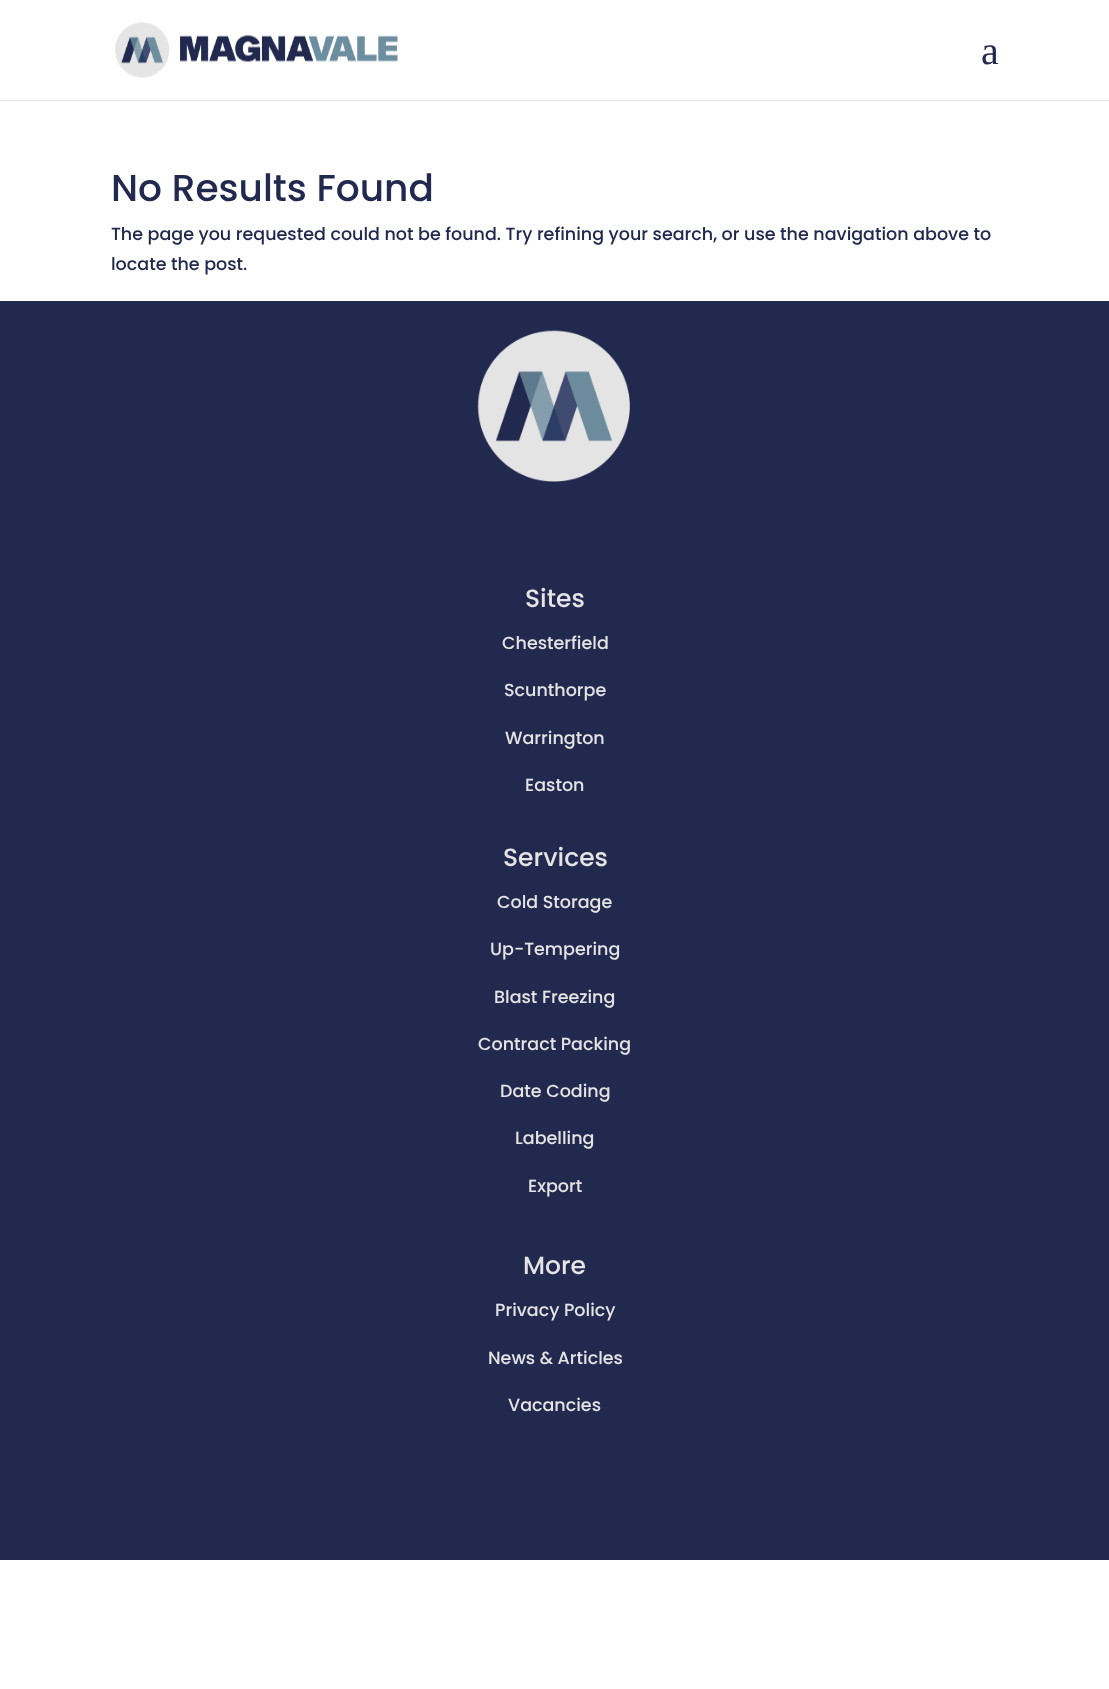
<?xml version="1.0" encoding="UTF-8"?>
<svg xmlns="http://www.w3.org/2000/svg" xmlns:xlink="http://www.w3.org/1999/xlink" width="1109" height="1689">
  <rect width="100%" height="100%" fill="#ffffff" />
  <rect y="100" width="1109" height="1" fill="#e6e6e6" />
  <image x="115" y="22" width="283" height="56" xlink:href="image1.png" />
  <rect y="301" width="1109" height="1259" fill="#21294e" />
  <image x="477" y="330" width="153" height="152" xlink:href="image2.png" />
  <text x="981" y="64" style="font-family: Liberation Serif; font-size: 40px; fill: #21294e">a</text>
  <text x="111" y="201" style="font-family: Poppins; font-size: 37.5px; font-weight: 500; fill: #21294e">No Results Found</text>
  <text x="111" y="240" style="font-family: Poppins; font-size: 17.5px; font-weight: 500; fill: #21294e">The page you requested could not be found. Try refining your search, or use the navigation above to</text>
  <text x="111" y="270" style="font-family: Poppins; font-size: 17.5px; font-weight: 500; fill: #21294e">locate the post.</text>
  <text x="525" y="607" style="font-family: Poppins; font-size: 25px; font-weight: 500; fill: #e5e4e4">Sites</text>
  <text x="502" y="649" style="font-family: Poppins; font-size: 17.5px; font-weight: 500; fill: #e5e4e4">Chesterfield</text>
  <text x="504" y="696" style="font-family: Poppins; font-size: 17.5px; font-weight: 500; fill: #e5e4e4">Scunthorpe</text>
  <text x="505" y="744" style="font-family: Poppins; font-size: 17.5px; font-weight: 500; fill: #e5e4e4">Warrington</text>
  <text x="525" y="791" style="font-family: Poppins; font-size: 17.5px; font-weight: 500; fill: #e5e4e4">Easton</text>
  <text x="503" y="866" style="font-family: Poppins; font-size: 25px; font-weight: 500; fill: #e5e4e4">Services</text>
  <text x="497" y="908" style="font-family: Poppins; font-size: 17.5px; font-weight: 500; fill: #e5e4e4">Cold Storage</text>
  <text x="490" y="955" style="font-family: Poppins; font-size: 17.5px; font-weight: 500; fill: #e5e4e4">Up-Tempering</text>
  <text x="494" y="1003" style="font-family: Poppins; font-size: 17.5px; font-weight: 500; fill: #e5e4e4">Blast Freezing</text>
  <text x="478" y="1050" style="font-family: Poppins; font-size: 17.5px; font-weight: 500; fill: #e5e4e4">Contract Packing</text>
  <text x="500" y="1097" style="font-family: Poppins; font-size: 17.5px; font-weight: 500; fill: #e5e4e4">Date Coding</text>
  <text x="515" y="1144" style="font-family: Poppins; font-size: 17.5px; font-weight: 500; fill: #e5e4e4">Labelling</text>
  <text x="528" y="1192" style="font-family: Poppins; font-size: 17.5px; font-weight: 500; fill: #e5e4e4">Export</text>
  <text x="523" y="1274" style="font-family: Poppins; font-size: 25px; font-weight: 500; fill: #e5e4e4">More</text>
  <text x="495" y="1316" style="font-family: Poppins; font-size: 17.5px; font-weight: 500; fill: #e5e4e4">Privacy Policy</text>
  <text x="488" y="1364" style="font-family: Poppins; font-size: 17.5px; font-weight: 500; fill: #e5e4e4">News &amp; Articles</text>
  <text x="508" y="1411" style="font-family: Poppins; font-size: 17.5px; font-weight: 500; fill: #e5e4e4">Vacancies</text>
</svg>
